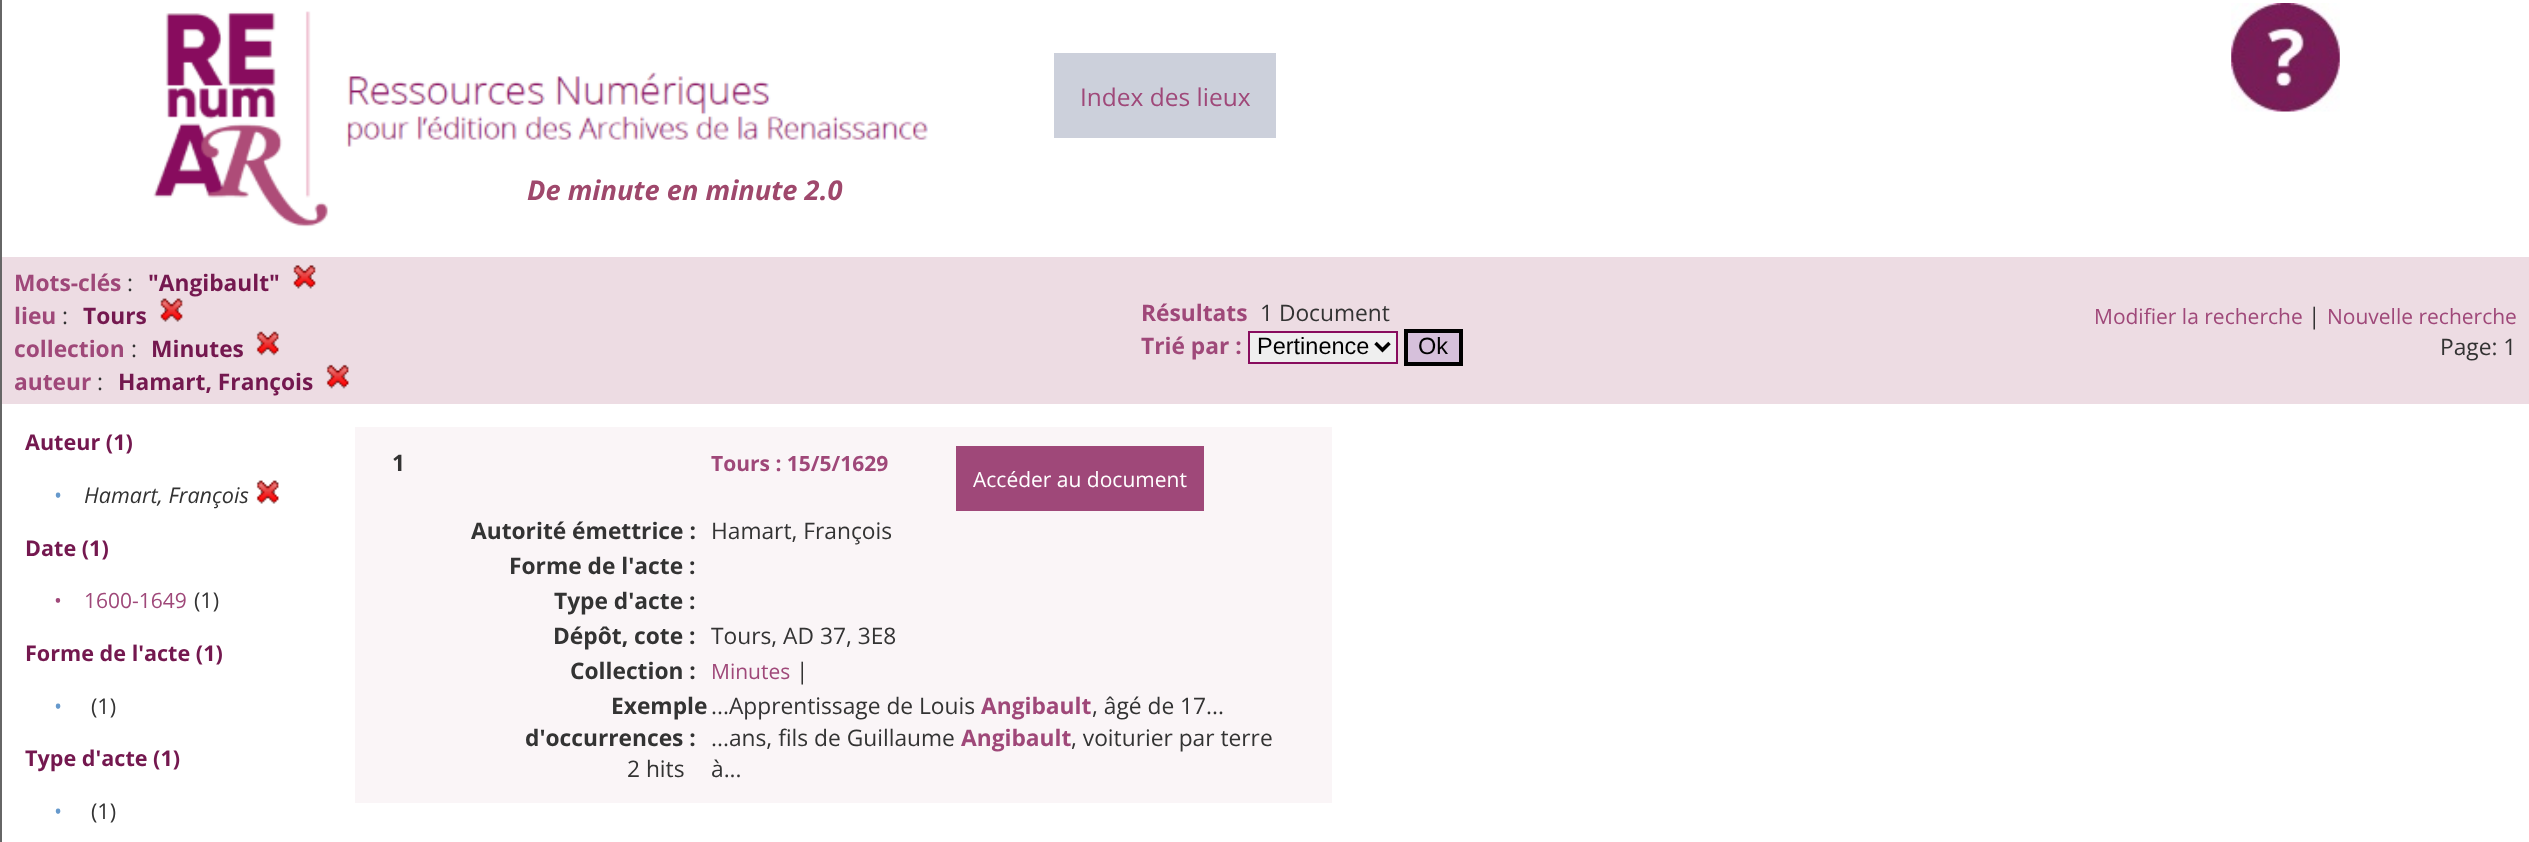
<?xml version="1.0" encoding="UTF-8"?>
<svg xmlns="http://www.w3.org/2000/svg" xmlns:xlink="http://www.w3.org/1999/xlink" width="2529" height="842">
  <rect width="100%" height="100%" fill="#666666" />
  <rect x="2" width="2527" height="257" fill="#ffffff" />
  <image x="153" y="11" width="775" height="216" xlink:href="image1.png" />
  <rect x="1054" y="53" width="222" height="85" fill="#ccd0db" />
  <image x="2231" y="3" width="109" height="109" xlink:href="image2.png" />
  <rect x="2" y="257" width="2527" height="147" fill="#eddce3" />
  <image x="293" y="265" width="23" height="24" xlink:href="image3.png" />
  <image x="160" y="298" width="23" height="24" xlink:href="image4.png" />
  <image x="256" y="331" width="23" height="25" xlink:href="image5.png" />
  <image x="326" y="364" width="23" height="25" xlink:href="image6.png" />
  <rect x="1249" y="332" width="148" height="31" fill="#efefef" stroke="#880c5e" stroke-width="2" />
  <path d="M 1375.5 343 l 7 7 l 7 -7" fill="none" stroke="#000000" stroke-width="3.5" />
  <rect x="1406" y="331" width="55" height="33" fill="#d6c0db" stroke="#000000" stroke-width="4" />
  <rect x="2" y="404" width="2527" height="438" fill="#ffffff" />
  <image x="256" y="480" width="23" height="24" xlink:href="image7.png" />
  <rect x="355" y="427" width="977" height="376" fill="#faf5f7" />
  <rect x="956" y="446" width="248" height="65" fill="#9f4879" />
  <text x="1080" y="106" style="font-family: Open Sans; font-size: 24.5px; fill: #9f4879">Index des lieux</text>
  <text x="527" y="200" style="font-family: Open Sans; font-size: 27.25px; font-weight: bold; font-style: italic; fill: #9f486c">De minute en minute 2.0</text>
  <text x="14" y="291" style="font-family: Open Sans; font-size: 22.75px; font-weight: bold; fill: #9f4879">Mots-clés</text>
  <text x="127" y="291" style="font-family: Open Sans; font-size: 22.75px; fill: #333333">:</text>
  <text x="148" y="291" style="font-family: Open Sans; font-size: 22.75px; font-weight: bold; fill: #74184f">"Angibault"</text>
  <text x="14" y="324" style="font-family: Open Sans; font-size: 22.75px; font-weight: bold; fill: #9f4879">lieu</text>
  <text x="62" y="324" style="font-family: Open Sans; font-size: 22.75px; fill: #333333">:</text>
  <text x="83" y="324" style="font-family: Open Sans; font-size: 22.75px; font-weight: bold; fill: #74184f">Tours</text>
  <text x="14" y="357" style="font-family: Open Sans; font-size: 22.75px; font-weight: bold; fill: #9f4879">collection</text>
  <text x="131" y="357" style="font-family: Open Sans; font-size: 22.75px; fill: #333333">:</text>
  <text x="151" y="357" style="font-family: Open Sans; font-size: 22.75px; font-weight: bold; fill: #74184f">Minutes</text>
  <text x="14" y="390" style="font-family: Open Sans; font-size: 22.75px; font-weight: bold; fill: #9f4879">auteur</text>
  <text x="97" y="390" style="font-family: Open Sans; font-size: 22.75px; fill: #333333">:</text>
  <text x="118" y="390" style="font-family: Open Sans; font-size: 22.75px; font-weight: bold; fill: #74184f">Hamart, François</text>
  <text x="1141" y="321" style="font-family: Open Sans; font-size: 22.75px; font-weight: bold; fill: #9f4879">Résultats</text>
  <text x="1260" y="321" style="font-family: Open Sans; font-size: 22.75px; fill: #333333">1 Document</text>
  <text x="1141" y="354" style="font-family: Open Sans; font-size: 22.75px; font-weight: bold; fill: #9f4879">Trié par :</text>
  <text x="1257" y="354" style="font-family: Liberation Sans; font-size: 23.5px; fill: #000000">Pertinence</text>
  <text x="1418" y="354" style="font-family: Liberation Sans; font-size: 23.5px; fill: #000000">Ok</text>
  <text x="2094" y="324" style="font-family: Open Sans; font-size: 21px; fill: #9f4879">Modifier la recherche</text>
  <text x="2308" y="324" style="font-family: Open Sans; font-size: 22.75px; fill: #333333">|</text>
  <text x="2327" y="324" style="font-family: Open Sans; font-size: 21px; fill: #9f4879">Nouvelle recherche</text>
  <text x="2440" y="355" style="font-family: Open Sans; font-size: 22.75px; fill: #333333">Page: 1</text>
  <text x="25" y="450" style="font-family: Open Sans; font-size: 21.6px; font-weight: bold; fill: #74184f">Auteur (1)</text>
  <text x="54" y="503" style="font-family: Open Sans; font-size: 21.6px; fill: #6699cc">•</text>
  <text x="84" y="503" style="font-family: Open Sans; font-size: 21.6px; font-style: italic; fill: #333333">Hamart, François</text>
  <text x="25" y="556" style="font-family: Open Sans; font-size: 21.6px; font-weight: bold; fill: #74184f">Date (1)</text>
  <text x="54" y="608" style="font-family: Open Sans; font-size: 21px; fill: #9f4879">•</text>
  <text x="84" y="608" style="font-family: Open Sans; font-size: 21px; fill: #9f4879">1600-1649</text>
  <text x="194" y="608" style="font-family: Open Sans; font-size: 21.6px; fill: #333333">(1)</text>
  <text x="25" y="661" style="font-family: Open Sans; font-size: 21.6px; font-weight: bold; fill: #74184f">Forme de l'acte (1)</text>
  <text x="54" y="714" style="font-family: Open Sans; font-size: 21.6px; fill: #6699cc">•</text>
  <text x="91" y="714" style="font-family: Open Sans; font-size: 21.6px; fill: #333333">(1)</text>
  <text x="25" y="766" style="font-family: Open Sans; font-size: 21.6px; font-weight: bold; fill: #74184f">Type d'acte (1)</text>
  <text x="54" y="819" style="font-family: Open Sans; font-size: 21.6px; fill: #6699cc">•</text>
  <text x="91" y="819" style="font-family: Open Sans; font-size: 21.6px; fill: #333333">(1)</text>
  <text x="392" y="471" style="font-family: Open Sans; font-size: 22.75px; font-weight: bold; fill: #333333">1</text>
  <text x="711" y="471" style="font-family: Open Sans; font-size: 21px; font-weight: bold; fill: #9f4879">Tours : 15/5/1629</text>
  <text x="973" y="487" style="font-family: Open Sans; font-size: 21px; fill: #ffffff">Accéder au document</text>
  <text x="471" y="539" style="font-family: Open Sans; font-size: 22.75px; font-weight: bold; fill: #333333">Autorité émettrice :</text>
  <text x="711" y="539" style="font-family: Open Sans; font-size: 22.75px; fill: #333333">Hamart, François</text>
  <text x="509" y="574" style="font-family: Open Sans; font-size: 22.75px; font-weight: bold; fill: #333333">Forme de l'acte :</text>
  <text x="554" y="609" style="font-family: Open Sans; font-size: 22.75px; font-weight: bold; fill: #333333">Type d'acte :</text>
  <text x="553" y="644" style="font-family: Open Sans; font-size: 22.75px; font-weight: bold; fill: #333333">Dépôt, cote :</text>
  <text x="711" y="644" style="font-family: Open Sans; font-size: 22.75px; fill: #333333">Tours, AD 37, 3E8</text>
  <text x="570" y="679" style="font-family: Open Sans; font-size: 22.75px; font-weight: bold; fill: #333333">Collection :</text>
  <text x="711" y="679" style="font-family: Open Sans; font-size: 21px; fill: #9f4879">Minutes</text>
  <text x="796" y="679" style="font-family: Open Sans; font-size: 22.75px; fill: #333333">|</text>
  <text x="611" y="714" style="font-family: Open Sans; font-size: 22.75px; font-weight: bold; fill: #333333">Exemple</text>
  <text x="525" y="746" style="font-family: Open Sans; font-size: 22.75px; font-weight: bold; fill: #333333">d'occurrences :</text>
  <text x="627" y="777" style="font-family: Open Sans; font-size: 22.75px; fill: #333333">2 hits</text>
  <text x="711" y="714" style="font-family: Open Sans; font-size: 22.75px; fill: #333333">...Apprentissage de Louis</text>
  <text x="981" y="714" style="font-family: Open Sans; font-size: 22.75px; font-weight: bold; fill: #9f4879">Angibault</text>
  <text x="1092" y="714" style="font-family: Open Sans; font-size: 22.75px; fill: #333333">, âgé de 17...</text>
  <text x="711" y="746" style="font-family: Open Sans; font-size: 22.75px; fill: #333333">...ans, fils de Guillaume</text>
  <text x="961" y="746" style="font-family: Open Sans; font-size: 22.75px; font-weight: bold; fill: #9f4879">Angibault</text>
  <text x="1071" y="746" style="font-family: Open Sans; font-size: 22.75px; fill: #333333">, voiturier par terre</text>
  <text x="711" y="777" style="font-family: Open Sans; font-size: 22.75px; fill: #333333">à...</text>
</svg>
